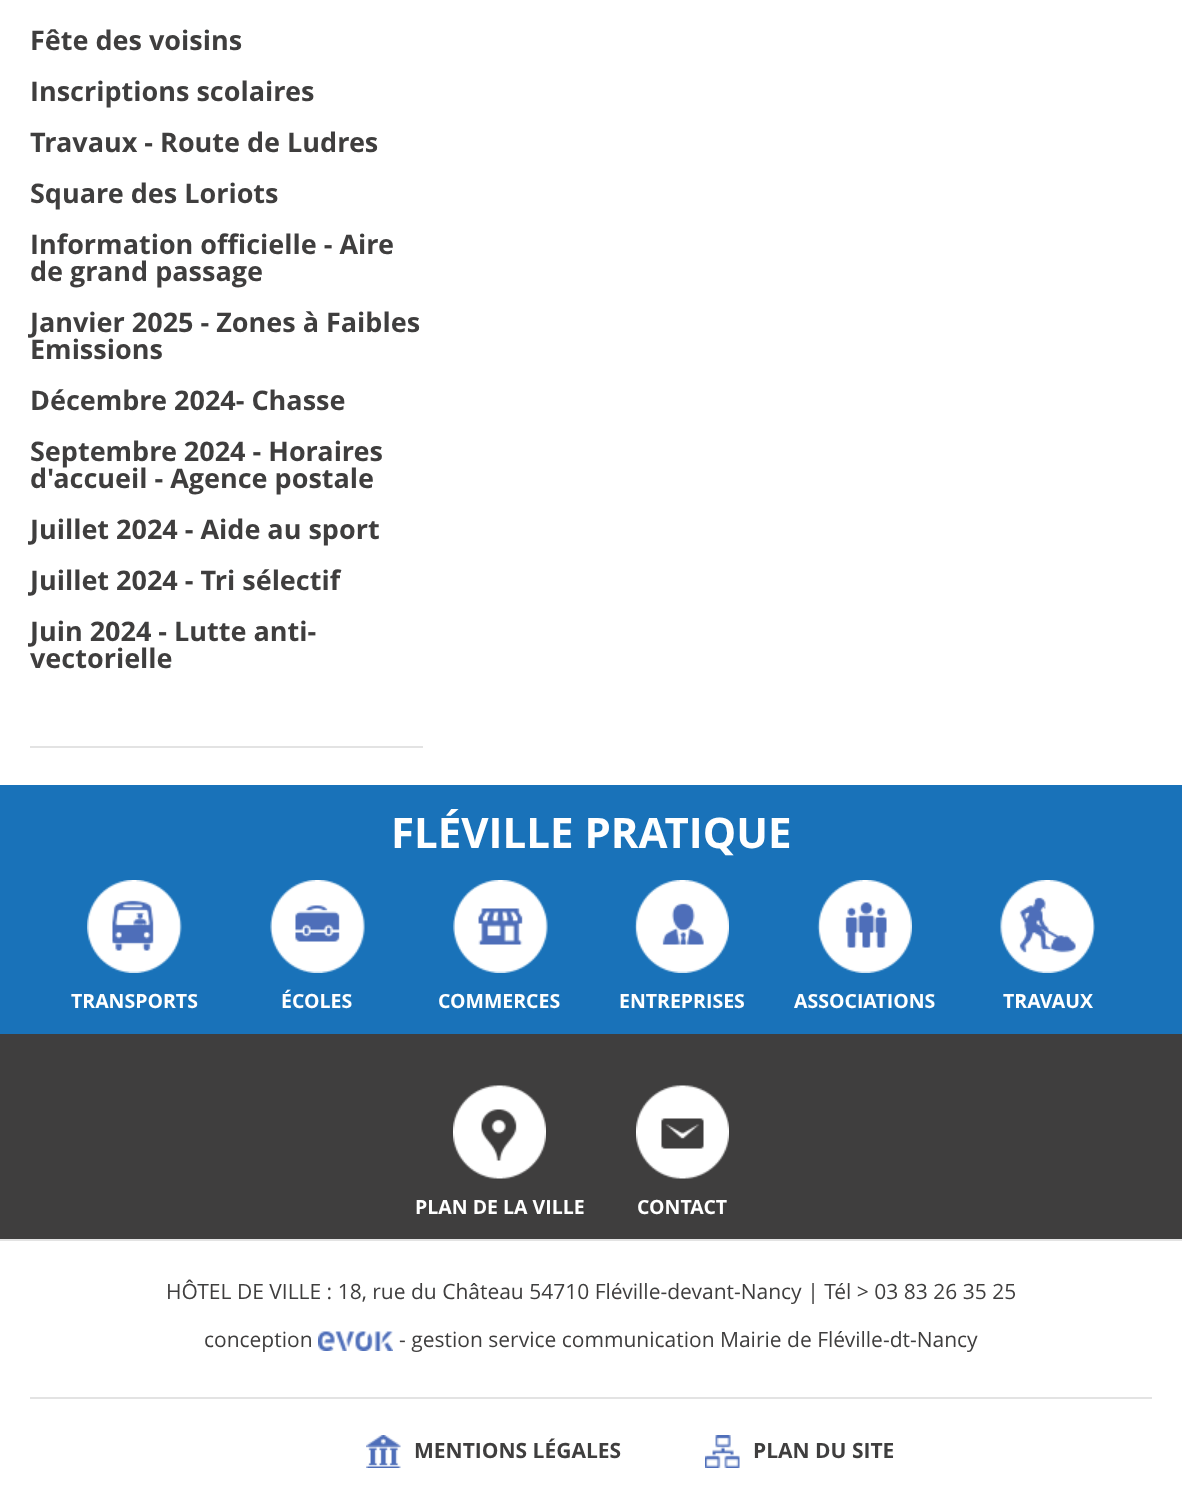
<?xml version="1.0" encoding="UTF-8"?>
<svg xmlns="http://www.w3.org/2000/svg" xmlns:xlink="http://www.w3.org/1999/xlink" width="1182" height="1505">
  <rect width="100%" height="100%" fill="#ffffff" />
  <rect x="30" y="746" width="393" height="2" fill="#e3e3e3" />
  <rect y="785" width="1182" height="249" fill="#1972b9" />
  <image x="87" y="880" width="95" height="93" xlink:href="image1.png" />
  <image x="270" y="880" width="95" height="93" xlink:href="image2.png" />
  <image x="453" y="880" width="95" height="93" xlink:href="image3.png" />
  <image x="634" y="880" width="95" height="93" xlink:href="image4.png" />
  <image x="817" y="880" width="95" height="93" xlink:href="image5.png" />
  <image x="1000" y="880" width="95" height="93" xlink:href="image6.png" />
  <rect y="1034" width="1182" height="205" fill="#3f3e3e" />
  <image x="453" y="1085" width="93" height="94" xlink:href="image7.png" />
  <image x="636" y="1085" width="93" height="94" xlink:href="image8.png" />
  <rect y="1239" width="1182" height="2" fill="#e3e3e3" />
  <rect x="30" y="1397" width="1122" height="2" fill="#e3e3e3" />
  <image x="318" y="1331" width="75" height="20" xlink:href="image9.png" />
  <image x="366" y="1435" width="35" height="33" xlink:href="image10.png" />
  <image x="705" y="1435" width="35" height="33" xlink:href="image11.png" />
  <text x="30" y="50" style="font-family: Open Sans; font-size: 27px; font-weight: bold; fill: #3f3e3e">Fête des voisins</text>
  <text x="30" y="101" style="font-family: Open Sans; font-size: 27px; font-weight: bold; fill: #3f3e3e">Inscriptions scolaires</text>
  <text x="30" y="152" style="font-family: Open Sans; font-size: 27px; font-weight: bold; fill: #3f3e3e">Travaux - Route de Ludres</text>
  <text x="30" y="203" style="font-family: Open Sans; font-size: 27px; font-weight: bold; fill: #3f3e3e">Square des Loriots</text>
  <text x="30" y="254" style="font-family: Open Sans; font-size: 27px; font-weight: bold; fill: #3f3e3e">Information officielle - Aire</text>
  <text x="30" y="281" style="font-family: Open Sans; font-size: 27px; font-weight: bold; fill: #3f3e3e">de grand passage</text>
  <text x="30" y="332" style="font-family: Open Sans; font-size: 27px; font-weight: bold; fill: #3f3e3e">Janvier 2025 - Zones à Faibles</text>
  <text x="30" y="359" style="font-family: Open Sans; font-size: 27px; font-weight: bold; fill: #3f3e3e">Emissions</text>
  <text x="30" y="410" style="font-family: Open Sans; font-size: 27px; font-weight: bold; fill: #3f3e3e">Décembre 2024- Chasse</text>
  <text x="30" y="461" style="font-family: Open Sans; font-size: 27px; font-weight: bold; fill: #3f3e3e">Septembre 2024 - Horaires</text>
  <text x="30" y="488" style="font-family: Open Sans; font-size: 27px; font-weight: bold; fill: #3f3e3e">d'accueil - Agence postale</text>
  <text x="30" y="539" style="font-family: Open Sans; font-size: 27px; font-weight: bold; fill: #3f3e3e">Juillet 2024 - Aide au sport</text>
  <text x="30" y="590" style="font-family: Open Sans; font-size: 27px; font-weight: bold; fill: #3f3e3e">Juillet 2024 - Tri sélectif</text>
  <text x="30" y="641" style="font-family: Open Sans; font-size: 27px; font-weight: bold; fill: #3f3e3e">Juin 2024 - Lutte anti-</text>
  <text x="30" y="668" style="font-family: Open Sans; font-size: 27px; font-weight: bold; fill: #3f3e3e">vectorielle</text>
  <text x="391" y="848" style="font-family: Open Sans; font-size: 42px; font-weight: bold; fill: #ffffff">FLÉVILLE PRATIQUE</text>
  <text x="71" y="1008" style="font-family: Open Sans; font-size: 19.5px; font-weight: bold; fill: #ffffff">TRANSPORTS</text>
  <text x="281" y="1008" style="font-family: Open Sans; font-size: 19.5px; font-weight: bold; fill: #ffffff">ÉCOLES</text>
  <text x="438" y="1008" style="font-family: Open Sans; font-size: 19.5px; font-weight: bold; fill: #ffffff">COMMERCES</text>
  <text x="619" y="1008" style="font-family: Open Sans; font-size: 19.5px; font-weight: bold; fill: #ffffff">ENTREPRISES</text>
  <text x="794" y="1008" style="font-family: Open Sans; font-size: 19.5px; font-weight: bold; fill: #ffffff">ASSOCIATIONS</text>
  <text x="1003" y="1008" style="font-family: Open Sans; font-size: 19.5px; font-weight: bold; fill: #ffffff">TRAVAUX</text>
  <text x="415" y="1214" style="font-family: Open Sans; font-size: 19.5px; font-weight: bold; fill: #ffffff">PLAN DE LA VILLE</text>
  <text x="637" y="1214" style="font-family: Open Sans; font-size: 19.5px; font-weight: bold; fill: #ffffff">CONTACT</text>
  <text x="166" y="1299" style="font-family: Open Sans; font-size: 21px; fill: #3f3e3e">HÔTEL DE VILLE : 18, rue du Château 54710 Fléville-devant-Nancy | Tél &gt; 03 83 26 35 25</text>
  <text x="204" y="1347" style="font-family: Open Sans; font-size: 21px; fill: #3f3e3e">conception</text>
  <text x="399" y="1347" style="font-family: Open Sans; font-size: 21px; fill: #3f3e3e">- gestion service communication Mairie de Fléville-dt-Nancy</text>
  <text x="414" y="1458" style="font-family: Open Sans; font-size: 21px; font-weight: bold; fill: #3f3e3e">MENTIONS LÉGALES</text>
  <text x="753" y="1458" style="font-family: Open Sans; font-size: 21px; font-weight: bold; fill: #3f3e3e">PLAN DU SITE</text>
</svg>
